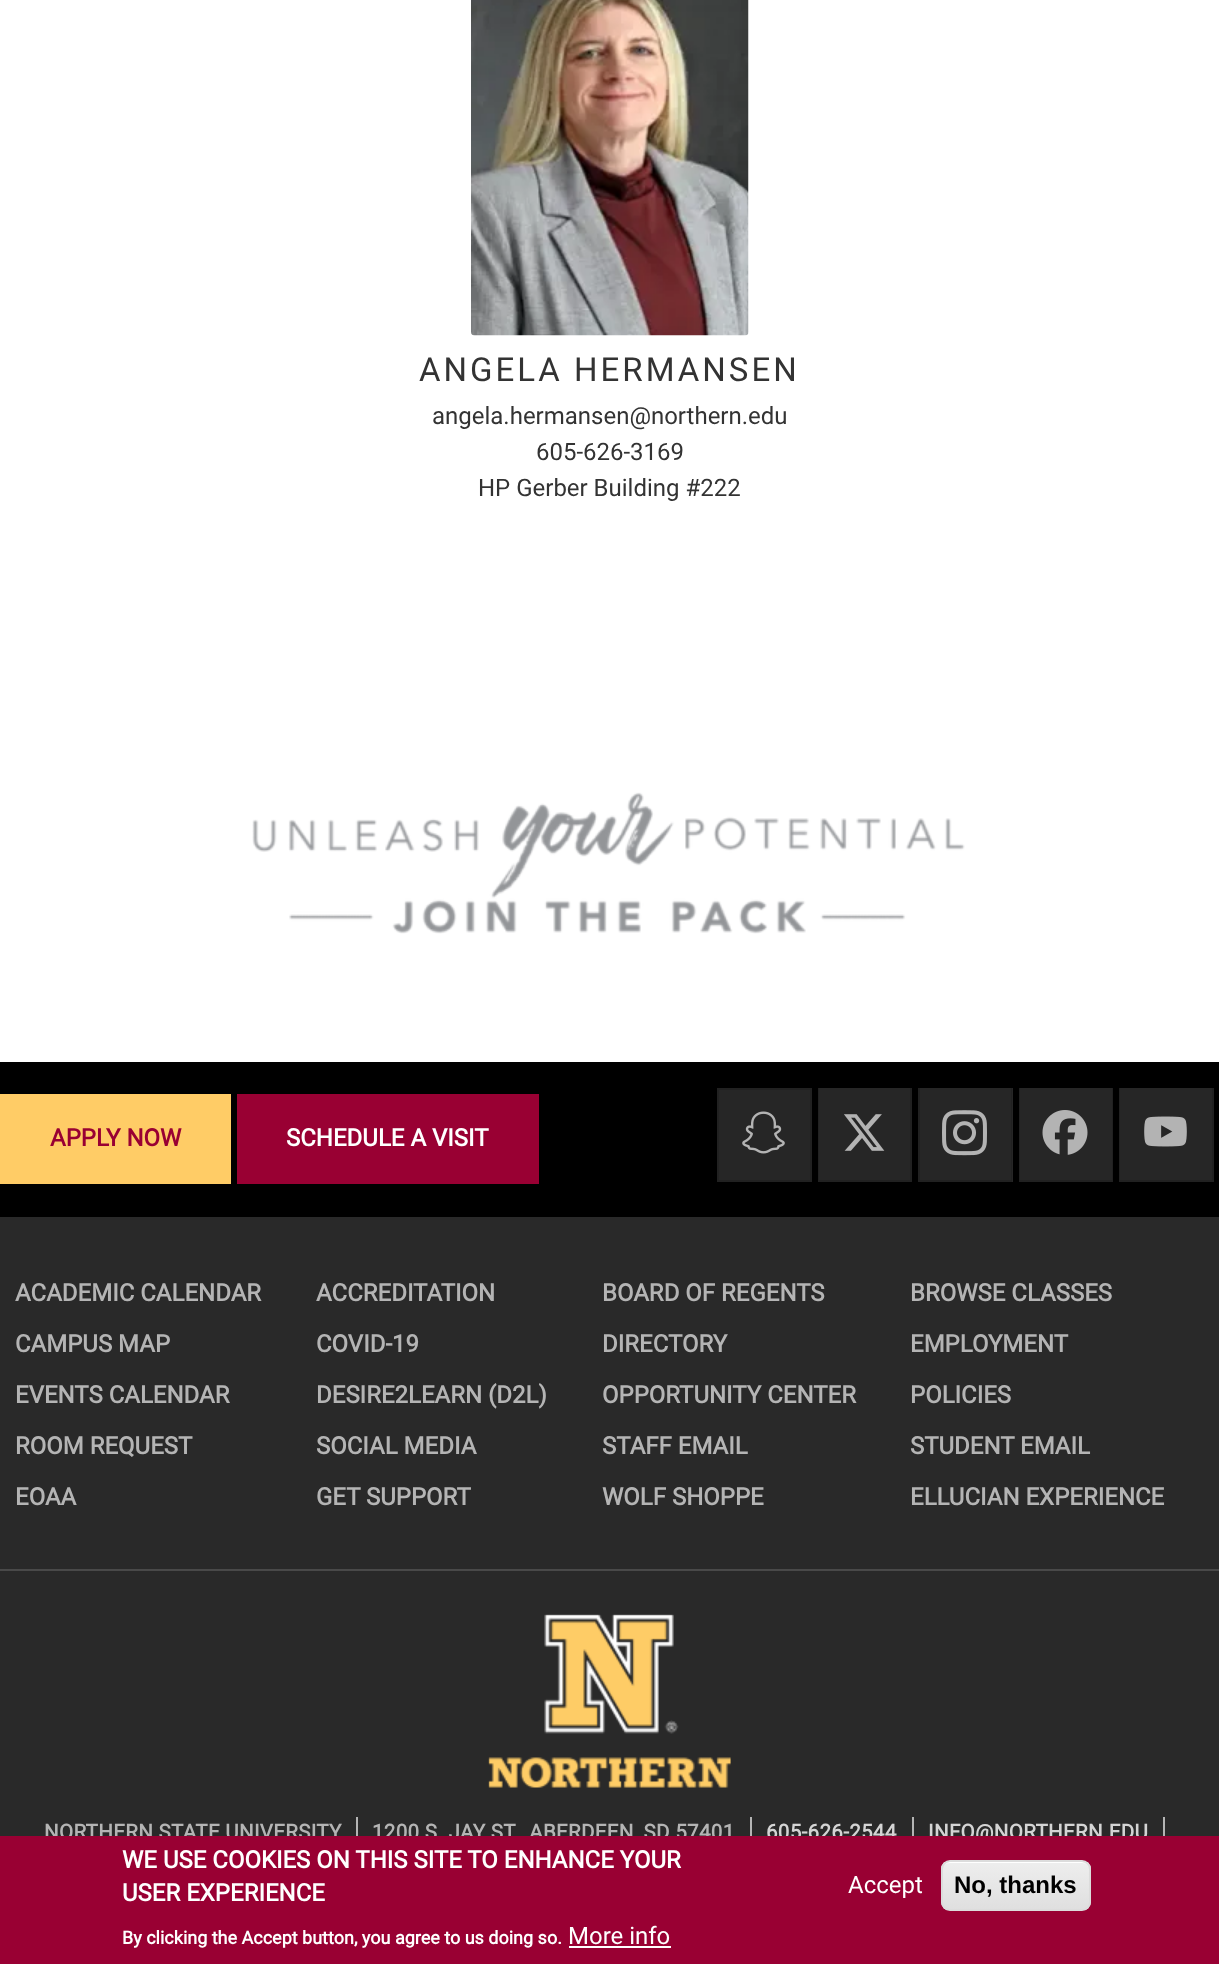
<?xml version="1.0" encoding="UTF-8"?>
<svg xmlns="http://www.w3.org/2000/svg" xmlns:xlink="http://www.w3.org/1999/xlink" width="1219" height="1964">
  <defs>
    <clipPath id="clip1"><rect x="941" y="1860" width="150" height="51" rx="9" /></clipPath>
    <linearGradient id="g1" gradientUnits="userSpaceOnUse" x1="1016" y1="1862" x2="1016" y2="1910"><stop offset="0.05" stop-color="#ededed" /><stop offset="1" stop-color="#dfdfdf" /></linearGradient>
  </defs>
  <rect width="100%" height="100%" fill="#ffffff" />
  <image x="471" y="0" width="278" height="336" xlink:href="image1.png" />
  <image x="252" y="792" width="713" height="142" xlink:href="image2.png" />
  <rect y="1062" width="1219" height="155" fill="#000000" />
  <rect y="1094" width="231" height="90" fill="#ffcc66" />
  <rect x="237" y="1094" width="302" height="90" fill="#990033" />
  <rect x="718" y="1089" width="93" height="92" fill="#262626" stroke="#212121" stroke-width="2" />
  <image x="742" y="1111" width="43" height="43" xlink:href="image3.png" />
  <rect x="818" y="1088" width="94" height="94" fill="#262626" />
  <path d="M 912 1088 v 94 l -2 -2 v -92 z" fill="#212121" />
  <path d="M 912 1182 h -94 l 1 -2 h 91 z" fill="#000000" fill-opacity="0.12" />
  <path d="M 818 1182 v -94 h 1 v 92 z" fill="#212121" />
  <image x="844" y="1114" width="41" height="37" xlink:href="image4.png" />
  <rect x="918" y="1088" width="95" height="94" fill="#262626" />
  <path d="M 1012 1088 v 94 l -1 -2 v -92 z" fill="#212121" />
  <path d="M 1012 1182 h -94 l 2 -2 h 91 z" fill="#212121" />
  <path d="M 918 1182 v -94 h 2 v 92 z" fill="#000000" fill-opacity="0.12" />
  <image x="942" y="1110" width="45" height="46" xlink:href="image5.png" />
  <rect x="1019" y="1088" width="94" height="94" fill="#262626" />
  <path d="M 1113 1088 v 94 l -1 -2 v -92 z" fill="#212121" />
  <path d="M 1113 1182 h -95 l 2 -2 h 92 z" fill="#000000" fill-opacity="0.12" />
  <path d="M 1018 1182 v -94 h 2 v 92 z" fill="#000000" fill-opacity="0.12" />
  <image x="1042" y="1110" width="46" height="45" xlink:href="image6.png" />
  <rect x="1119" y="1088" width="95" height="94" fill="#262626" />
  <path d="M 1214 1088 v 94 l -2 -2 v -92 z" fill="#212121" />
  <path d="M 1214 1182 h -95 l 1 -2 h 92 z" fill="#000000" fill-opacity="0.12" />
  <path d="M 1119 1182 v -94 h 1 v 92 z" fill="#212121" />
  <image x="1144" y="1116" width="43" height="31" xlink:href="image7.png" />
  <rect y="1217" width="1219" height="619" fill="#292929" />
  <rect y="1569" width="1219" height="2" fill="#494949" />
  <image x="488" y="1614" width="243" height="174" xlink:href="image8.png" />
  <rect x="356" y="1817" width="2" height="19" fill="#b4b4b4" />
  <rect x="750" y="1817" width="2" height="19" fill="#b4b4b4" />
  <rect x="912" y="1817" width="2" height="19" fill="#b4b4b4" />
  <rect x="1163" y="1817" width="2" height="19" fill="#b4b4b4" />
  <text x="419" y="381" style="font-family: Roboto; font-size: 33px; letter-spacing: 3px; fill: #333333">ANGELA HERMANSEN</text>
  <text x="432" y="424" style="font-family: Roboto; font-size: 24px; fill: #333333">angela.hermansen@northern.edu</text>
  <text x="536" y="460" style="font-family: Roboto; font-size: 24px; fill: #333333">605-626-3169</text>
  <text x="478" y="496" style="font-family: Roboto; font-size: 24px; fill: #333333">HP Gerber Building #222</text>
  <text x="50" y="1146" style="font-family: Roboto; font-size: 24px; font-weight: bold; fill: #990033">APPLY NOW</text>
  <text x="286" y="1146" style="font-family: Roboto; font-size: 24px; font-weight: bold; fill: #ffffff">SCHEDULE A VISIT</text>
  <text x="15" y="1301" style="font-family: Roboto; font-size: 24px; font-weight: bold; fill: #b4b4b4">ACADEMIC CALENDAR</text>
  <text x="316" y="1301" style="font-family: Roboto; font-size: 24px; font-weight: bold; fill: #b4b4b4">ACCREDITATION</text>
  <text x="602" y="1301" style="font-family: Roboto; font-size: 24px; font-weight: bold; fill: #b4b4b4">BOARD OF REGENTS</text>
  <text x="910" y="1301" style="font-family: Roboto; font-size: 24px; font-weight: bold; fill: #b4b4b4">BROWSE CLASSES</text>
  <text x="15" y="1352" style="font-family: Roboto; font-size: 24px; font-weight: bold; fill: #b4b4b4">CAMPUS MAP</text>
  <text x="316" y="1352" style="font-family: Roboto; font-size: 24px; font-weight: bold; fill: #b4b4b4">COVID-19</text>
  <text x="602" y="1352" style="font-family: Roboto; font-size: 24px; font-weight: bold; fill: #b4b4b4">DIRECTORY</text>
  <text x="910" y="1352" style="font-family: Roboto; font-size: 24px; font-weight: bold; fill: #b4b4b4">EMPLOYMENT</text>
  <text x="15" y="1403" style="font-family: Roboto; font-size: 24px; font-weight: bold; fill: #b4b4b4">EVENTS CALENDAR</text>
  <text x="316" y="1403" style="font-family: Roboto; font-size: 24px; font-weight: bold; fill: #b4b4b4">DESIRE2LEARN (D2L)</text>
  <text x="602" y="1403" style="font-family: Roboto; font-size: 24px; font-weight: bold; fill: #b4b4b4">OPPORTUNITY CENTER</text>
  <text x="910" y="1403" style="font-family: Roboto; font-size: 24px; font-weight: bold; fill: #b4b4b4">POLICIES</text>
  <text x="15" y="1454" style="font-family: Roboto; font-size: 24px; font-weight: bold; fill: #b4b4b4">ROOM REQUEST</text>
  <text x="316" y="1454" style="font-family: Roboto; font-size: 24px; font-weight: bold; fill: #b4b4b4">SOCIAL MEDIA</text>
  <text x="602" y="1454" style="font-family: Roboto; font-size: 24px; font-weight: bold; fill: #b4b4b4">STAFF EMAIL</text>
  <text x="910" y="1454" style="font-family: Roboto; font-size: 24px; font-weight: bold; fill: #b4b4b4">STUDENT EMAIL</text>
  <text x="15" y="1505" style="font-family: Roboto; font-size: 24px; font-weight: bold; fill: #b4b4b4">EOAA</text>
  <text x="316" y="1505" style="font-family: Roboto; font-size: 24px; font-weight: bold; fill: #b4b4b4">GET SUPPORT</text>
  <text x="602" y="1505" style="font-family: Roboto; font-size: 24px; font-weight: bold; fill: #b4b4b4">WOLF SHOPPE</text>
  <text x="910" y="1505" style="font-family: Roboto; font-size: 24px; font-weight: bold; fill: #b4b4b4">ELLUCIAN EXPERIENCE</text>
  <text x="44" y="1839" style="font-family: Roboto; font-size: 20.6px; font-weight: bold; letter-spacing: 0.3px; fill: #b4b4b4">NORTHERN STATE UNIVERSITY</text>
  <text x="372" y="1839" style="font-family: Roboto; font-size: 20.6px; font-weight: bold; letter-spacing: 0.3px; fill: #b4b4b4">1200 S. JAY ST., ABERDEEN, SD 57401</text>
  <text x="766" y="1839" style="font-family: Roboto; font-size: 20.6px; font-weight: bold; letter-spacing: 0.3px; fill: #d4d4d4">605-626-2544</text>
  <text x="928" y="1839" style="font-family: Roboto; font-size: 20.6px; font-weight: bold; letter-spacing: 0.3px; fill: #d4d4d4">INFO@NORTHERN.EDU</text>
  <rect y="1836" width="1219" height="128" fill="#990033" />
  <text x="122" y="1868" style="font-family: Roboto; font-size: 24px; font-weight: bold; fill: #ffffff">WE USE COOKIES ON THIS SITE TO ENHANCE YOUR</text>
  <text x="122" y="1901" style="font-family: Roboto; font-size: 24px; font-weight: bold; fill: #ffffff">USER EXPERIENCE</text>
  <text x="122" y="1944" style="font-family: Roboto; font-size: 18px; font-weight: bold; fill: #ffffff">By clicking the Accept button, you agree to us doing so.</text>
  <text x="568" y="1944" style="font-family: Roboto; font-size: 24px; fill: #ffffff">More info</text>
  <rect x="569" y="1946" width="102" height="2" fill="#ffffff" />
  <text x="848" y="1893" style="font-family: Roboto; font-size: 24px; fill: #ffffff">Accept</text>
  <g clip-path="url(#clip1)">
    <rect x="941" y="1862" width="150" height="48" fill="url(#g1)" />
  </g>
  <path d="M 950 1863 h 132 c 4 0 7 3 7 7 c 0 -4 -4 -8 -8 -8 h -131 c -4 0 -8 4 -8 8 c 0 -4 3 -7 8 -7 z" fill="#ffffff" />
  <rect x="942" y="1861" width="148" height="49" rx="8" fill="none" stroke="#dcdcdc" stroke-width="2" />
  <text x="954" y="1893" style="font-family: Liberation Sans; font-size: 24px; font-weight: bold; fill: #000000">No, thanks</text>
</svg>
